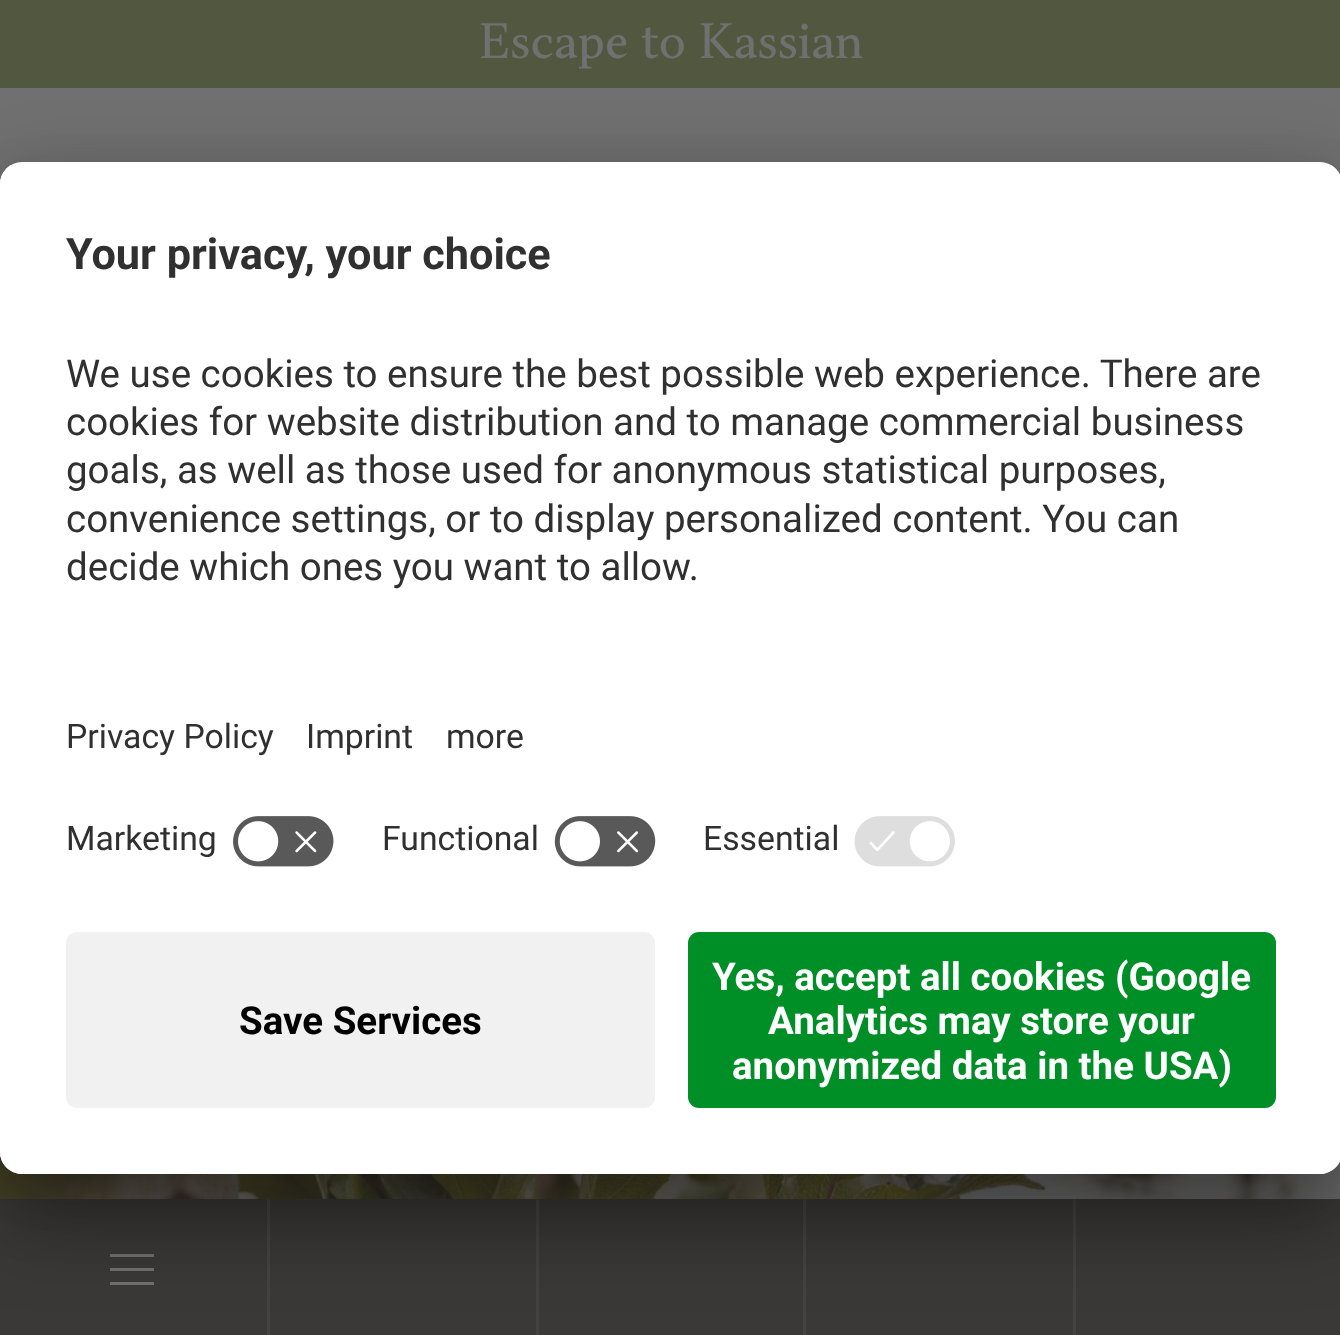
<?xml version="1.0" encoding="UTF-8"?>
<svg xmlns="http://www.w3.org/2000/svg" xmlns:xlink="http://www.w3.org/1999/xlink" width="1340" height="1335">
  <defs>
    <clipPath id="clip1"><rect y="162" width="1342" height="1012" rx="22" /></clipPath>
    <clipPath id="clip2"><path d="M 22 162 h 1298 c 12 0 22 10 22 22 v 726 h -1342 v -726 c 0 -12 10 -22 22 -22 z" /></clipPath>
  </defs>
  <rect width="100%" height="100%" fill="#707070" />
  <rect width="1340" height="88" fill="#52583f" />
  <image x="509" y="156" width="62" height="6" xlink:href="image1.png" />
  <rect y="1199" width="1340" height="136" fill="#3b3938" />
  <rect x="110" y="1254" width="44" height="3" fill="#707070" />
  <rect x="110" y="1268" width="44" height="3" fill="#707070" />
  <rect x="110" y="1282" width="44" height="3" fill="#707070" />
  <rect x="267" y="1199" width="3" height="136" fill="#454342" />
  <rect x="536" y="1199" width="3" height="136" fill="#454342" />
  <rect x="803" y="1199" width="3" height="136" fill="#454342" />
  <rect x="1073" y="1199" width="3" height="136" fill="#454342" />
  <image x="0" y="1152" width="1340" height="47" xlink:href="image2.png" />
  <rect y="217" width="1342" height="1012" rx="22" fill="#000000" fill-opacity="0.3" filter="blur(38.5px)" />
  <rect y="176" width="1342" height="1012" rx="22" fill="#000000" fill-opacity="0.22" filter="blur(36px)" />
  <rect y="162" width="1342" height="1012" rx="22" fill="#ffffff" />
  <g clip-path="url(#clip1)">
    <g clip-path="url(#clip2)">
      <rect y="165" width="1340" height="745" fill="#ffffff" />
      <rect y="165" width="1340" height="635" fill="#ffffff" />
    </g>
  </g>
  <image x="233" y="816" width="101" height="51" xlink:href="image3.png" />
  <image x="554" y="816" width="102" height="51" xlink:href="image4.png" />
  <image x="854" y="816" width="101" height="51" xlink:href="image5.png" />
  <path d="M 0 910 h 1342 v 242 c 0 12 -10 22 -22 22 h -1298 c -12 0 -22 -10 -22 -22 z" fill="#ffffff" />
  <rect x="66" y="932" width="589" height="176" rx="11" fill="#f1f1f1" />
  <rect x="688" y="932" width="588" height="176" rx="11" fill="#008f26" />
  <text x="479" y="58" style="font-family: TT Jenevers; font-size: 45.25px; fill: #707070">Escape to Kassian</text>
  <text x="66" y="269" style="font-family: Roboto; font-size: 43.25px; font-weight: bold; fill: #303030">Your privacy, your choice</text>
  <text x="66" y="387" style="font-family: Roboto; font-size: 38.5px; fill: #303030">We use cookies to ensure the best possible web experience. There are</text>
  <text x="66" y="435" style="font-family: Roboto; font-size: 38.5px; fill: #303030">cookies for website distribution and to manage commercial business</text>
  <text x="66" y="483" style="font-family: Roboto; font-size: 38.5px; fill: #303030">goals, as well as those used for anonymous statistical purposes,</text>
  <text x="66" y="532" style="font-family: Roboto; font-size: 38.5px; fill: #303030">convenience settings, or to display personalized content. You can</text>
  <text x="66" y="580" style="font-family: Roboto; font-size: 38.5px; fill: #303030">decide which ones you want to allow.</text>
  <text x="66" y="748" style="font-family: Roboto; font-size: 33.75px; fill: #303030">Privacy Policy</text>
  <text x="306" y="748" style="font-family: Roboto; font-size: 33.75px; fill: #303030">Imprint</text>
  <text x="446" y="748" style="font-family: Roboto; font-size: 33.75px; fill: #303030">more</text>
  <text x="66" y="850" style="font-family: Roboto; font-size: 33.75px; fill: #303030">Marketing</text>
  <text x="382" y="850" style="font-family: Roboto; font-size: 33.75px; fill: #303030">Functional</text>
  <text x="703" y="850" style="font-family: Roboto; font-size: 33.75px; fill: #303030">Essential</text>
  <text x="239" y="1034" style="font-family: Roboto; font-size: 38.5px; font-weight: bold; fill: #000000">Save Services</text>
  <text x="712" y="990" style="font-family: Roboto; font-size: 38.5px; font-weight: bold; fill: #ffffff">Yes, accept all cookies (Google</text>
  <text x="768" y="1034" style="font-family: Roboto; font-size: 38.5px; font-weight: bold; fill: #ffffff">Analytics may store your</text>
  <text x="732" y="1079" style="font-family: Roboto; font-size: 38.5px; font-weight: bold; fill: #ffffff">anonymized data in the USA)</text>
</svg>
